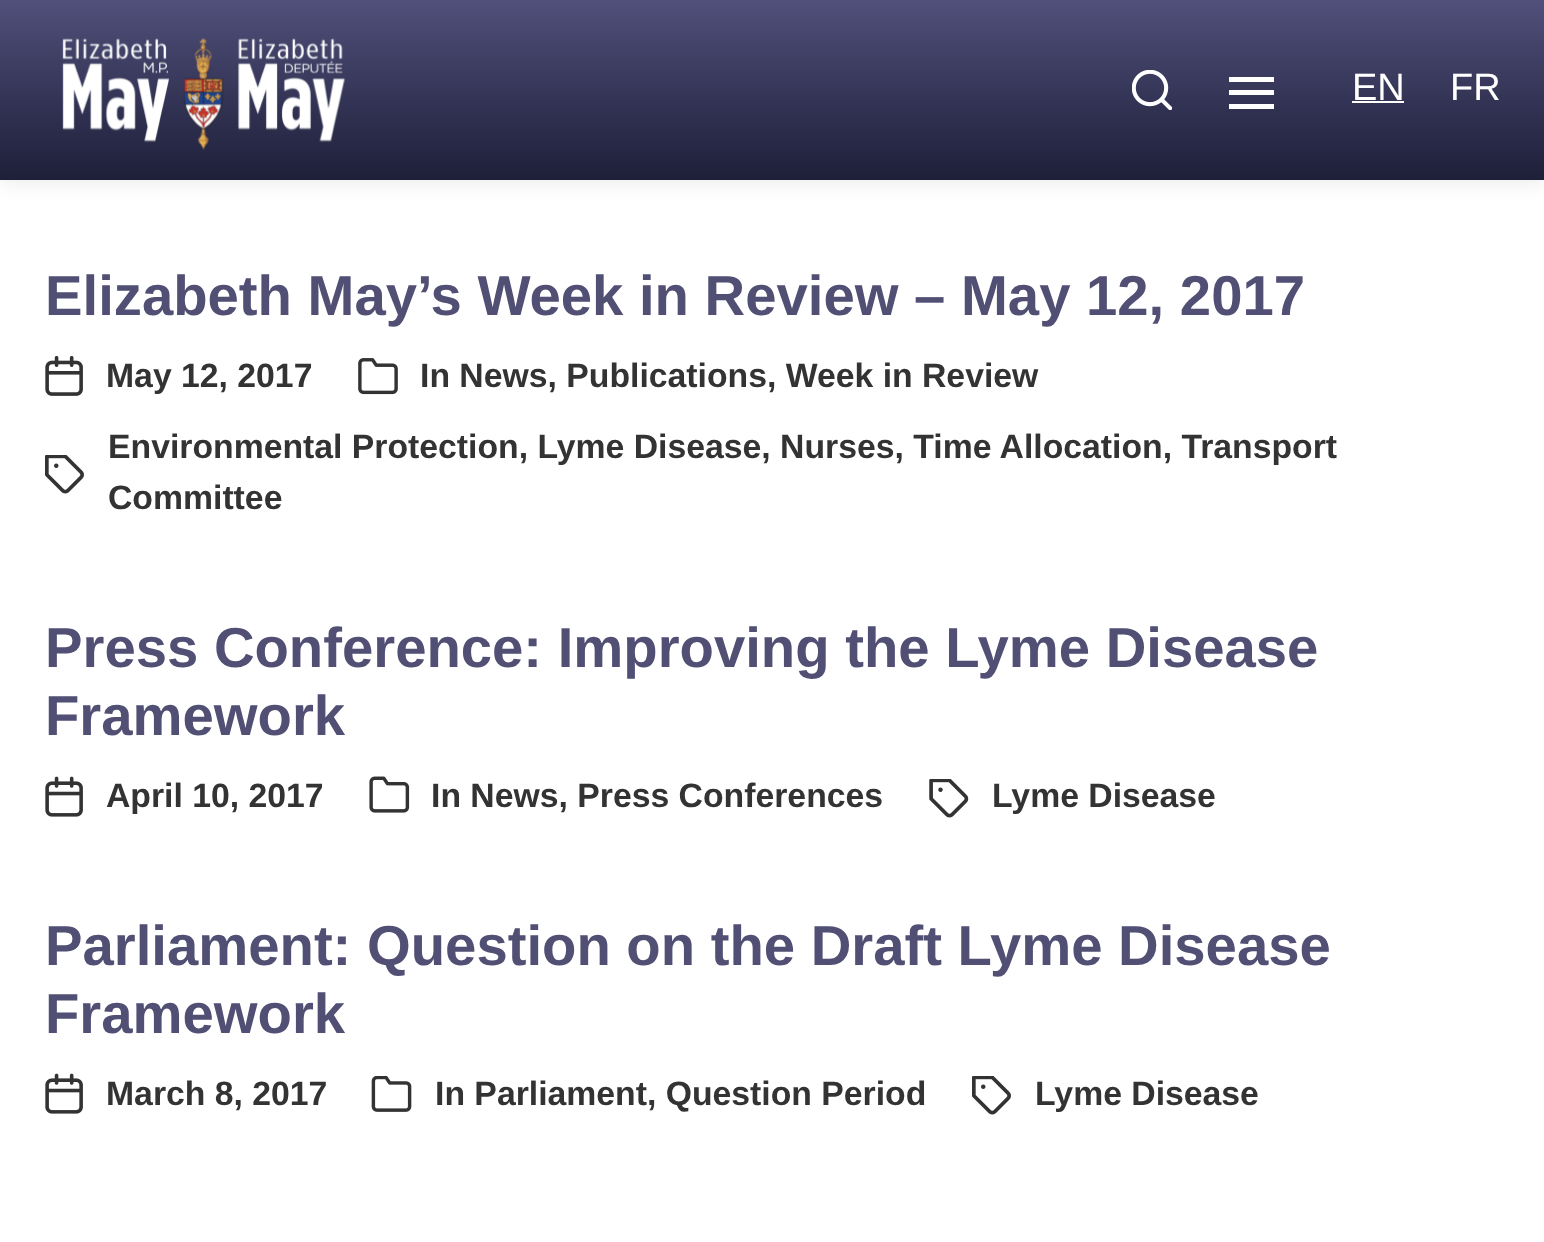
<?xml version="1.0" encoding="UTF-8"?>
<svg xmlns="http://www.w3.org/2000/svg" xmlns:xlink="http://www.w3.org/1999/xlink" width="1544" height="1242">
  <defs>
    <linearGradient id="g1" gradientUnits="userSpaceOnUse" x1="773" y1="0" x2="773" y2="180"><stop offset="0" stop-color="#50507b" /><stop offset="0.25" stop-color="#43436a" /><stop offset="0.5" stop-color="#363759" /><stop offset="0.75" stop-color="#2a2b49" /><stop offset="1" stop-color="#1e2039" /></linearGradient>
  </defs>
  <rect width="100%" height="100%" fill="#ffffff" />
  <rect width="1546" height="180" fill="#000000" fill-opacity="0.1" filter="blur(11px)" />
  <rect width="1544" height="180" fill="url(#g1)" />
  <image x="62" y="38" width="283" height="113" xlink:href="image1.png" />
  <image x="1132" y="70" width="40" height="40" xlink:href="image2.png" />
  <rect x="1229" y="77" width="45" height="5" fill="#ffffff" />
  <rect x="1229" y="90" width="45" height="5" fill="#ffffff" />
  <rect x="1229" y="104" width="45" height="5" fill="#ffffff" />
  <rect x="1352" y="101" width="52" height="2" fill="#ffffff" />
  <image x="45" y="356" width="38" height="40" xlink:href="image3.png" />
  <image x="358" y="358" width="40" height="37" xlink:href="image4.png" />
  <image x="45" y="455" width="39" height="39" xlink:href="image5.png" />
  <image x="45" y="776" width="38" height="41" xlink:href="image6.png" />
  <image x="369" y="776" width="41" height="37" xlink:href="image7.png" />
  <image x="929" y="779" width="40" height="39" xlink:href="image8.png" />
  <image x="45" y="1073" width="38" height="41" xlink:href="image6.png" />
  <image x="371" y="1076" width="41" height="36" xlink:href="image9.png" />
  <image x="972" y="1076" width="39" height="39" xlink:href="image5.png" />
  <text x="1352" y="100" style="font-family: Liberation Sans; font-size: 38px; fill: #ffffff">EN</text>
  <text x="1450" y="100" style="font-family: Liberation Sans; font-size: 38px; fill: #ffffff">FR</text>
  <text x="45" y="315" style="font-family: Liberation Sans; font-size: 56.25px; font-weight: bold; fill: #514f74">Elizabeth May’s Week in Review – May 12, 2017</text>
  <text x="106" y="387" style="font-family: Liberation Sans; font-size: 33.75px; font-weight: bold; fill: #333333">May 12, 2017</text>
  <text x="420" y="387" style="font-family: Liberation Sans; font-size: 33.75px; font-weight: bold; fill: #333333">In News, Publications, Week in Review</text>
  <text x="108" y="458" style="font-family: Liberation Sans; font-size: 33.75px; font-weight: bold; fill: #333333">Environmental Protection, Lyme Disease, Nurses, Time Allocation, Transport</text>
  <text x="108" y="509" style="font-family: Liberation Sans; font-size: 33.75px; font-weight: bold; fill: #333333">Committee</text>
  <text x="45" y="667" style="font-family: Liberation Sans; font-size: 56.25px; font-weight: bold; fill: #514f74">Press Conference: Improving the Lyme Disease</text>
  <text x="45" y="735" style="font-family: Liberation Sans; font-size: 56.25px; font-weight: bold; fill: #514f74">Framework</text>
  <text x="106" y="807" style="font-family: Liberation Sans; font-size: 33.75px; font-weight: bold; fill: #333333">April 10, 2017</text>
  <text x="431" y="807" style="font-family: Liberation Sans; font-size: 33.75px; font-weight: bold; fill: #333333">In News, Press Conferences</text>
  <text x="992" y="807" style="font-family: Liberation Sans; font-size: 33.75px; font-weight: bold; fill: #333333">Lyme Disease</text>
  <text x="45" y="965" style="font-family: Liberation Sans; font-size: 56.25px; font-weight: bold; fill: #514f74">Parliament: Question on the Draft Lyme Disease</text>
  <text x="45" y="1033" style="font-family: Liberation Sans; font-size: 56.25px; font-weight: bold; fill: #514f74">Framework</text>
  <text x="106" y="1105" style="font-family: Liberation Sans; font-size: 33.75px; font-weight: bold; fill: #333333">March 8, 2017</text>
  <text x="435" y="1105" style="font-family: Liberation Sans; font-size: 33.75px; font-weight: bold; fill: #333333">In Parliament, Question Period</text>
  <text x="1035" y="1105" style="font-family: Liberation Sans; font-size: 33.75px; font-weight: bold; fill: #333333">Lyme Disease</text>
</svg>
